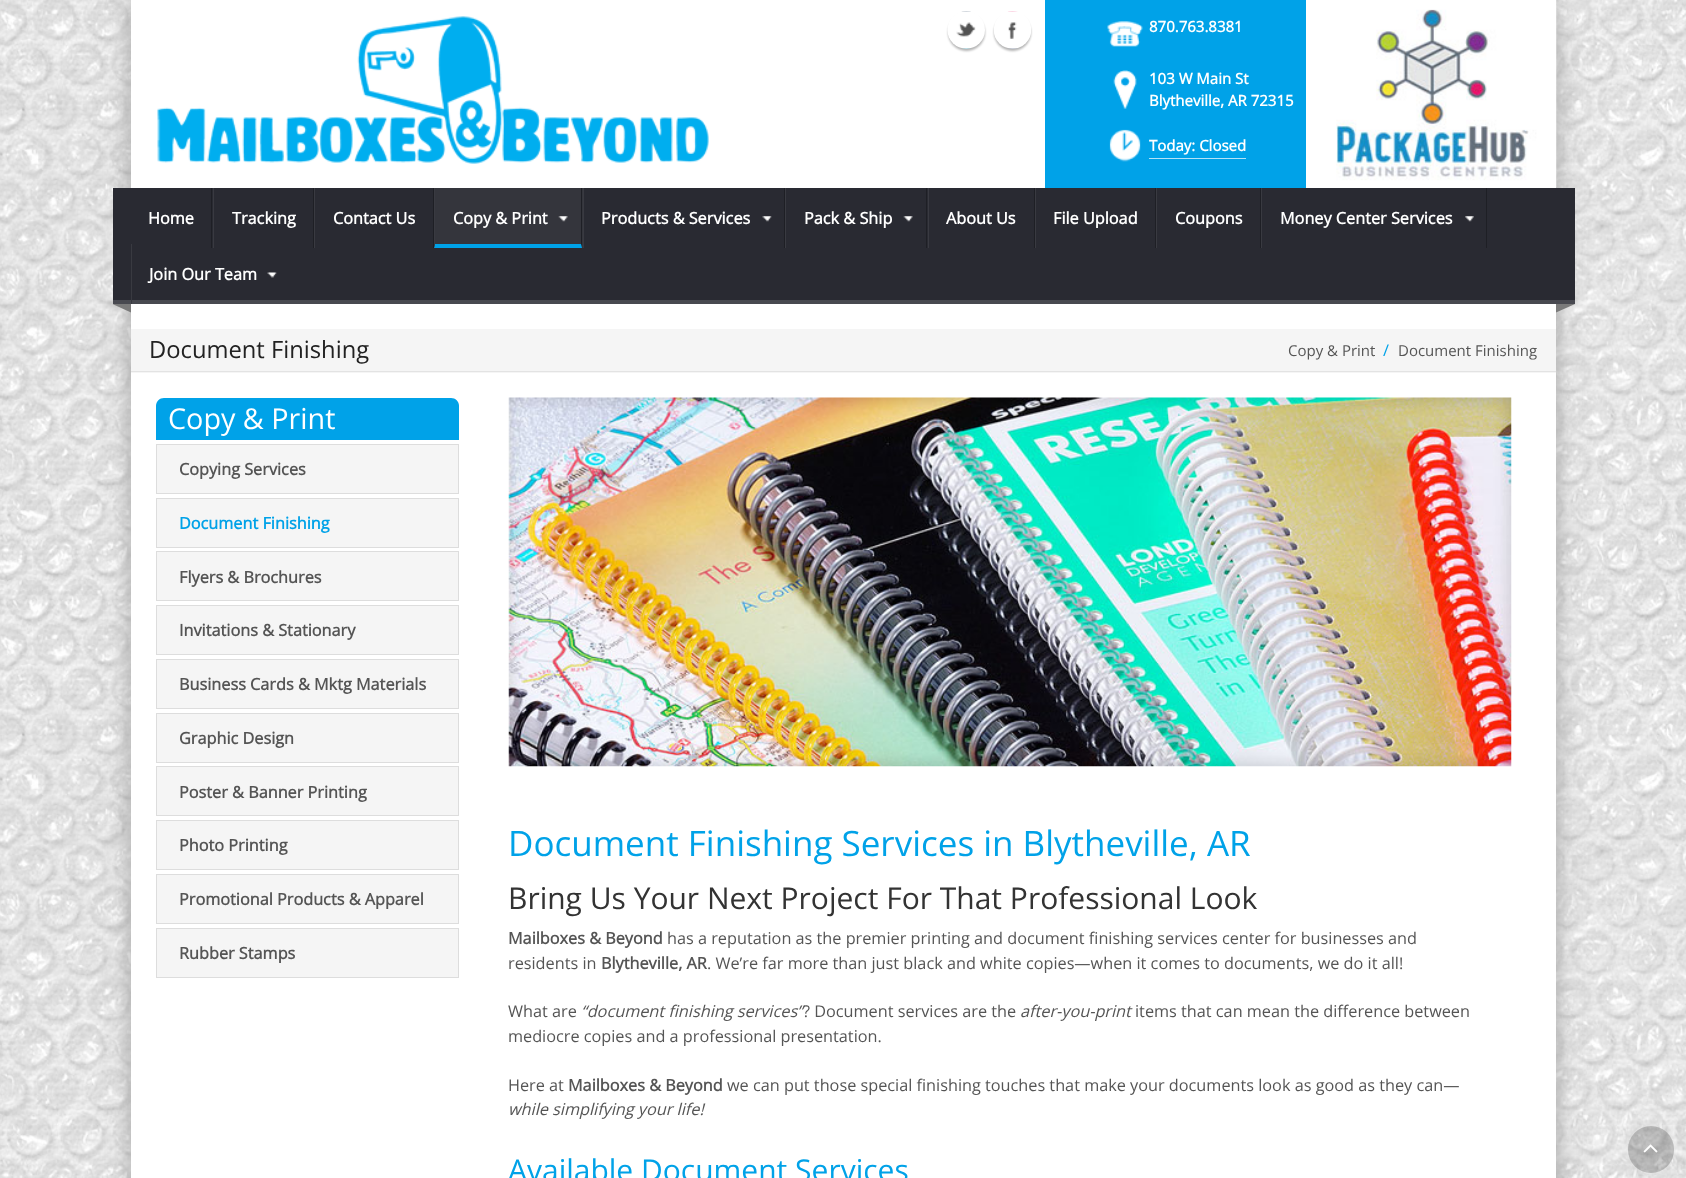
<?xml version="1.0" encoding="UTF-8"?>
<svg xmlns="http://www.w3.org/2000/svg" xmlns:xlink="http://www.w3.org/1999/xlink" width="1686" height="1178">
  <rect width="100%" height="100%" fill="#ffffff" />
  <image x="0" y="0" width="1686" height="1178" xlink:href="image1.png" />
  <rect x="131" width="1425" height="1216" fill="#a3a3a3" filter="blur(12.5px)" />
  <rect x="131" width="1425" height="1178" fill="#ffffff" />
  <image x="157" y="16" width="552" height="148" xlink:href="image2.png" />
  <rect x="948" y="14" width="37" height="37" rx="18.5" fill="#000000" fill-opacity="0.3" filter="blur(1px)" />
  <image x="947" y="11" width="38" height="38" xlink:href="image3.png" />
  <rect x="994" y="14" width="37" height="37" rx="18.5" fill="#000000" fill-opacity="0.3" filter="blur(1px)" />
  <image x="994" y="11" width="37" height="38" xlink:href="image4.png" />
  <rect x="1045" width="261" height="188" fill="#00a2e8" />
  <image x="1107" y="21" width="36" height="26" xlink:href="image5.png" />
  <image x="1113" y="70" width="24" height="39" xlink:href="image6.png" />
  <image x="1109" y="129" width="32" height="33" xlink:href="image7.png" />
  <rect x="1149" y="158" width="97" height="1" fill="#b3e3f8" />
  <image x="1336" y="0" width="221" height="188" xlink:href="image8.png" />
  <rect x="113" y="188" width="1462" height="112" fill="#292a32" />
  <rect x="113" y="300" width="1462" height="4" fill="#484950" />
  <rect x="211" y="188" width="1" height="60" fill="#1e1f25" />
  <rect x="313" y="188" width="1" height="60" fill="#1e1f25" />
  <rect x="213" y="188" width="1" height="60" fill="#393a41" />
  <rect x="433" y="188" width="1" height="60" fill="#1e1f25" />
  <rect x="314" y="188" width="1" height="60" fill="#393a41" />
  <rect x="434" y="188" width="149" height="60" fill="#34353c" />
  <path d="M 582 188 v 60 l -1 -4 v -56 z" fill="#1e1f25" />
  <path d="M 582 248 h -148 l 1 -4 h 146 z" fill="#00a2e8" />
  <path d="M 434 248 v -60 h 1 v 56 z" fill="#393a41" />
  <image x="558" y="216" width="10" height="6" xlink:href="image9.png" />
  <rect x="784" y="188" width="1" height="60" fill="#1e1f25" />
  <rect x="583" y="188" width="1" height="60" fill="#393a41" />
  <image x="762" y="216" width="10" height="6" xlink:href="image10.png" />
  <rect x="926" y="188" width="1" height="60" fill="#1e1f25" />
  <rect x="785" y="188" width="1" height="60" fill="#393a41" />
  <image x="903" y="216" width="10" height="6" xlink:href="image11.png" />
  <rect x="1034" y="188" width="1" height="60" fill="#1e1f25" />
  <rect x="928" y="188" width="1" height="60" fill="#393a41" />
  <rect x="1155" y="188" width="1" height="60" fill="#1e1f25" />
  <rect x="1035" y="188" width="1" height="60" fill="#393a41" />
  <rect x="1260" y="188" width="1" height="60" fill="#1e1f25" />
  <rect x="1156" y="188" width="1" height="60" fill="#393a41" />
  <rect x="1486" y="188" width="1" height="60" fill="#1e1f25" />
  <rect x="1261" y="188" width="1" height="60" fill="#393a41" />
  <image x="1465" y="216" width="9" height="6" xlink:href="image12.png" />
  <rect x="131" y="244" width="1" height="60" fill="#393a41" />
  <image x="267" y="272" width="10" height="6" xlink:href="image13.png" />
  <path d="M 131 304 v 8.5 l -18.5 -8.5 z" fill="#7a7a7a" />
  <path d="M 1556 304 h 19 l -19 8.5 z" fill="#7a7a7a" />
  <rect x="131" y="329" width="1425" height="44" fill="#f5f5f5" />
  <rect x="131" y="371" width="1425" height="1" fill="#e3e3e3" />
  <path d="M 164 398 h 287 c 4.5 0 8 3.5 8 8 v 34 h -303 v -34 c 0 -4.5 3.5 -8 8 -8 z" fill="#00a2e8" />
  <rect x="156.5" y="444.5" width="302" height="49" fill="#f5f5f5" stroke="#dddddd" />
  <rect x="156.5" y="498.5" width="302" height="49" fill="#f5f5f5" stroke="#dddddd" />
  <rect x="156.5" y="551.5" width="302" height="49" fill="#f5f5f5" stroke="#dddddd" />
  <rect x="156.5" y="605.5" width="302" height="49" fill="#f5f5f5" stroke="#dddddd" />
  <rect x="156.5" y="659.5" width="302" height="49" fill="#f5f5f5" stroke="#dddddd" />
  <rect x="156.5" y="713.5" width="302" height="49" fill="#f5f5f5" stroke="#dddddd" />
  <rect x="156.5" y="766.5" width="302" height="49" fill="#f5f5f5" stroke="#dddddd" />
  <rect x="156.5" y="820.5" width="302" height="49" fill="#f5f5f5" stroke="#dddddd" />
  <rect x="156.5" y="874.5" width="302" height="49" fill="#f5f5f5" stroke="#dddddd" />
  <rect x="156.5" y="928.5" width="302" height="49" fill="#f5f5f5" stroke="#dddddd" />
  <image x="508" y="397" width="1004" height="370" xlink:href="image14.png" />
  <rect x="1628" y="1126" width="46" height="47" rx="23" fill="#000000" fill-opacity="0.2" />
  <image x="1643" y="1144" width="15" height="9" xlink:href="image15.png" />
  <text x="1149" y="32" style="font-family: Open Sans; font-size: 15px; font-weight: bold; fill: #ffffff">870.763.8381</text>
  <text x="1149" y="84" style="font-family: Open Sans; font-size: 15px; font-weight: bold; fill: #ffffff">103 W Main St</text>
  <text x="1149" y="106" style="font-family: Open Sans; font-size: 15px; font-weight: bold; fill: #ffffff">Blytheville, AR 72315</text>
  <text x="1149" y="151" style="font-family: Open Sans; font-size: 15px; font-weight: bold; fill: #ffffff">Today: Closed</text>
  <text x="148" y="224" style="font-family: Open Sans; font-size: 16.25px; font-weight: bold; fill: #ffffff">Home</text>
  <text x="232" y="224" style="font-family: Open Sans; font-size: 16.25px; font-weight: bold; fill: #ffffff">Tracking</text>
  <text x="333" y="224" style="font-family: Open Sans; font-size: 16.25px; font-weight: bold; fill: #ffffff">Contact Us</text>
  <text x="453" y="224" style="font-family: Open Sans; font-size: 16.25px; font-weight: bold; fill: #ffffff">Copy &amp; Print</text>
  <text x="601" y="224" style="font-family: Open Sans; font-size: 16.25px; font-weight: bold; fill: #ffffff">Products &amp; Services</text>
  <text x="804" y="224" style="font-family: Open Sans; font-size: 16.25px; font-weight: bold; fill: #ffffff">Pack &amp; Ship</text>
  <text x="946" y="224" style="font-family: Open Sans; font-size: 16.25px; font-weight: bold; fill: #ffffff">About Us</text>
  <text x="1053" y="224" style="font-family: Open Sans; font-size: 16.25px; font-weight: bold; fill: #ffffff">File Upload</text>
  <text x="1175" y="224" style="font-family: Open Sans; font-size: 16.25px; font-weight: bold; fill: #ffffff">Coupons</text>
  <text x="1280" y="224" style="font-family: Open Sans; font-size: 16.25px; font-weight: bold; fill: #ffffff">Money Center Services</text>
  <text x="149" y="280" style="font-family: Open Sans; font-size: 16.25px; font-weight: bold; fill: #ffffff">Join Our Team</text>
  <text x="149" y="358" style="font-family: Open Sans; font-size: 23.75px; fill: #222222">Document Finishing</text>
  <text x="1288" y="356" style="font-family: Open Sans; font-size: 15px; fill: #555555">Copy &amp; Print</text>
  <text x="1383" y="356" style="font-family: Open Sans; font-size: 16.25px; fill: #00a2e8">/</text>
  <text x="1398" y="356" style="font-family: Open Sans; font-size: 15px; fill: #555555">Document Finishing</text>
  <text x="168" y="429" style="font-family: Open Sans; font-size: 28.75px; fill: #ffffff">Copy &amp; Print</text>
  <text x="179" y="475" style="font-family: Open Sans; font-size: 16.25px; font-weight: bold; fill: #555555">Copying Services</text>
  <text x="179" y="529" style="font-family: Open Sans; font-size: 16.25px; font-weight: bold; fill: #00a2e8">Document Finishing</text>
  <text x="179" y="583" style="font-family: Open Sans; font-size: 16.25px; font-weight: bold; fill: #555555">Flyers &amp; Brochures</text>
  <text x="179" y="636" style="font-family: Open Sans; font-size: 16.25px; font-weight: bold; fill: #555555">Invitations &amp; Stationary</text>
  <text x="179" y="690" style="font-family: Open Sans; font-size: 16.25px; font-weight: bold; fill: #555555">Business Cards &amp; Mktg Materials</text>
  <text x="179" y="744" style="font-family: Open Sans; font-size: 16.25px; font-weight: bold; fill: #555555">Graphic Design</text>
  <text x="179" y="798" style="font-family: Open Sans; font-size: 16.25px; font-weight: bold; fill: #555555">Poster &amp; Banner Printing</text>
  <text x="179" y="851" style="font-family: Open Sans; font-size: 16.25px; font-weight: bold; fill: #555555">Photo Printing</text>
  <text x="179" y="905" style="font-family: Open Sans; font-size: 16.25px; font-weight: bold; fill: #555555">Promotional Products &amp; Apparel</text>
  <text x="179" y="959" style="font-family: Open Sans; font-size: 16.25px; font-weight: bold; fill: #555555">Rubber Stamps</text>
  <text x="508" y="856" style="font-family: Open Sans; font-size: 35px; fill: #00a2e8">Document Finishing Services in Blytheville, AR</text>
  <text x="508" y="909" style="font-family: Open Sans; font-size: 30px; fill: #333333">Bring Us Your Next Project For That Professional Look</text>
  <text x="508" y="944" style="font-family: Open Sans; font-size: 16.25px; font-weight: bold; fill: #555555">Mailboxes &amp; Beyond</text>
  <text x="667" y="944" style="font-family: Open Sans; font-size: 16.25px; fill: #555555">has a reputation as the premier printing and document finishing services center for businesses and</text>
  <text x="508" y="969" style="font-family: Open Sans; font-size: 16.25px; fill: #555555">residents in</text>
  <text x="601" y="969" style="font-family: Open Sans; font-size: 16.25px; font-weight: bold; fill: #555555">Blytheville, AR</text>
  <text x="707" y="969" style="font-family: Open Sans; font-size: 16.25px; fill: #555555">. We’re far more than just black and white copies—when it comes to documents, we do it all!</text>
  <text x="508" y="1017" style="font-family: Open Sans; font-size: 16.25px; fill: #555555">What are</text>
  <text x="581" y="1017" style="font-family: Open Sans; font-size: 16.25px; font-style: italic; fill: #555555">“document finishing services”</text>
  <text x="803" y="1017" style="font-family: Open Sans; font-size: 16.25px; fill: #555555">? Document services are the</text>
  <text x="1020" y="1017" style="font-family: Open Sans; font-size: 16.25px; font-style: italic; fill: #555555">after-you-print</text>
  <text x="1135" y="1017" style="font-family: Open Sans; font-size: 16.25px; fill: #555555">items that can mean the difference between</text>
  <text x="508" y="1042" style="font-family: Open Sans; font-size: 16.25px; fill: #555555">mediocre copies and a professional presentation.</text>
  <text x="508" y="1091" style="font-family: Open Sans; font-size: 16.25px; fill: #555555">Here at</text>
  <text x="568" y="1091" style="font-family: Open Sans; font-size: 16.25px; font-weight: bold; fill: #555555">Mailboxes &amp; Beyond</text>
  <text x="727" y="1091" style="font-family: Open Sans; font-size: 16.25px; fill: #555555">we can put those special finishing touches that make your documents look as good as they can—</text>
  <text x="508" y="1115" style="font-family: Open Sans; font-size: 16.25px; font-style: italic; fill: #555555">while simplifying your life!</text>
  <text x="508" y="1181" style="font-family: Open Sans; font-size: 30px; fill: #00a2e8">Available Document Services</text>
</svg>
